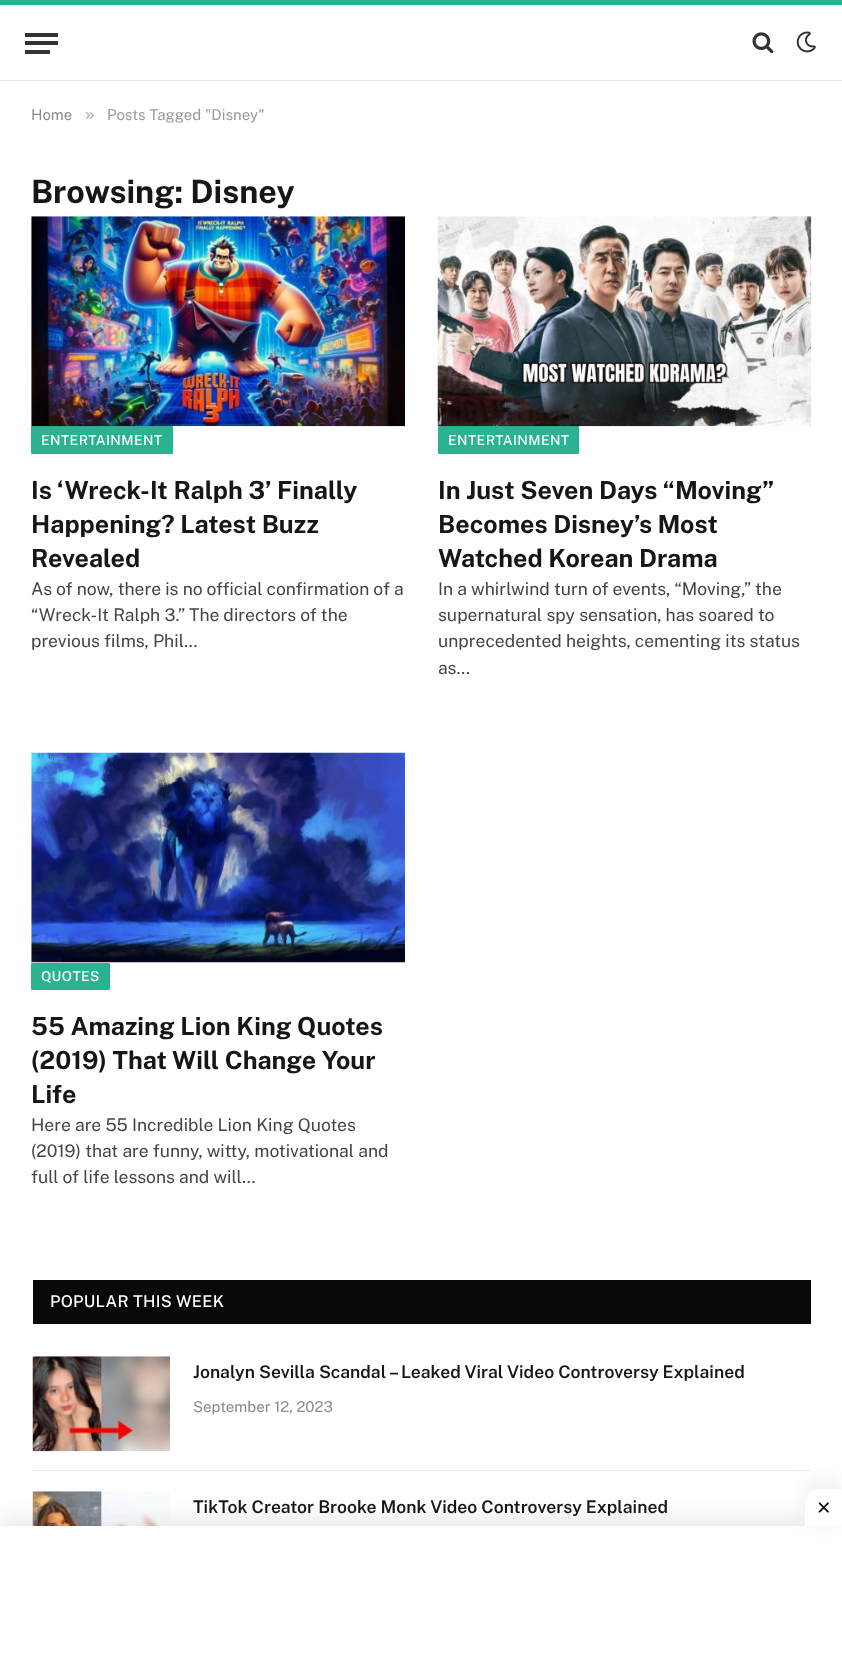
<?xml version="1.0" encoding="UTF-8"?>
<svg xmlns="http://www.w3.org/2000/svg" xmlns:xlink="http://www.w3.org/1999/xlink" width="842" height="1658">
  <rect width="100%" height="100%" fill="#ffffff" />
  <rect width="842" height="5" fill="#2ab391" />
  <rect y="80" width="842" height="1" fill="#e8e8e8" />
  <rect x="25" y="50" width="25" height="4" fill="#333333" />
  <rect x="25" y="33" width="33" height="4" fill="#333333" />
  <rect x="25" y="41" width="33" height="4" fill="#333333" />
  <image x="752" y="32" width="22" height="22" xlink:href="image1.png" />
  <image x="796" y="31" width="20" height="22" xlink:href="image2.png" />
  <rect x="31" y="426" width="142" height="28" rx="1" fill="#2ab391" />
  <image x="31" y="216" width="374" height="211" xlink:href="image3.png" />
  <rect x="438" y="426" width="141" height="28" rx="1" fill="#2ab391" />
  <image x="437" y="216" width="375" height="211" xlink:href="image4.png" />
  <image x="31" y="752" width="374" height="211" xlink:href="image5.png" />
  <rect x="31" y="963" width="79" height="27" rx="1" fill="#2ab391" />
  <rect x="33" y="1280" width="778" height="44" fill="#080808" />
  <image x="32" y="1356" width="138" height="96" xlink:href="image6.png" />
  <rect x="33" y="1470" width="778" height="1" fill="#e8e8e8" />
  <image x="32" y="1491" width="138" height="35" xlink:href="image7.png" />
  <rect y="1519" width="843" height="132" fill="#09204c" fill-opacity="0.1" filter="blur(11px)" />
  <rect y="1526" width="842" height="132" fill="#fefefe" />
  <rect x="805" y="1481" width="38" height="38" rx="15" fill="#09204c" fill-opacity="0.08" filter="blur(11px)" />
  <path d="M 820 1489 h 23 v 37 h -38 v -22 c 0 -8.5 6.5 -15 15 -15 z" fill="#fefefe" />
  <image x="818" y="1502" width="11" height="11" xlink:href="image8.png" />
  <text x="31" y="120" style="font-family: Public Sans; font-size: 15px; fill: #8a8a8a">Home</text>
  <text x="85" y="120" style="font-family: Liberation Sans; font-size: 17px; fill: #adadad">»</text>
  <text x="107" y="120" style="font-family: Public Sans; font-size: 15px; fill: #999999">Posts Tagged "Disney"</text>
  <text x="31" y="203" style="font-family: Public Sans; font-size: 32.25px; font-weight: bold; fill: #161616">Browsing: Disney</text>
  <text x="41" y="445" style="font-family: Public Sans; font-size: 13.75px; font-weight: 500; letter-spacing: 0.4px; fill: #ffffff">ENTERTAINMENT</text>
  <text x="31" y="499" style="font-family: Public Sans; font-size: 25px; font-weight: bold; fill: #161616">Is ‘Wreck-It Ralph 3’ Finally</text>
  <text x="31" y="533" style="font-family: Public Sans; font-size: 25px; font-weight: bold; fill: #161616">Happening? Latest Buzz</text>
  <text x="31" y="567" style="font-family: Public Sans; font-size: 25px; font-weight: bold; fill: #161616">Revealed</text>
  <text x="31" y="595" style="font-family: Public Sans; font-size: 17.5px; fill: #444444">As of now, there is no official confirmation of a</text>
  <text x="31" y="621" style="font-family: Public Sans; font-size: 17.5px; fill: #444444">“Wreck-It Ralph 3.” The directors of the</text>
  <text x="31" y="647" style="font-family: Public Sans; font-size: 17.5px; fill: #444444">previous films, Phil…</text>
  <text x="448" y="445" style="font-family: Public Sans; font-size: 13.75px; font-weight: 500; letter-spacing: 0.4px; fill: #ffffff">ENTERTAINMENT</text>
  <text x="438" y="499" style="font-family: Public Sans; font-size: 25px; font-weight: bold; fill: #161616">In Just Seven Days “Moving”</text>
  <text x="438" y="533" style="font-family: Public Sans; font-size: 25px; font-weight: bold; fill: #161616">Becomes Disney’s Most</text>
  <text x="438" y="567" style="font-family: Public Sans; font-size: 25px; font-weight: bold; fill: #161616">Watched Korean Drama</text>
  <text x="438" y="595" style="font-family: Public Sans; font-size: 17.5px; fill: #444444">In a whirlwind turn of events, “Moving,” the</text>
  <text x="438" y="621" style="font-family: Public Sans; font-size: 17.5px; fill: #444444">supernatural spy sensation, has soared to</text>
  <text x="438" y="647" style="font-family: Public Sans; font-size: 17.5px; fill: #444444">unprecedented heights, cementing its status</text>
  <text x="438" y="674" style="font-family: Public Sans; font-size: 17.5px; fill: #444444">as…</text>
  <text x="41" y="981" style="font-family: Public Sans; font-size: 13.75px; font-weight: 500; letter-spacing: 0.4px; fill: #ffffff">QUOTES</text>
  <text x="31" y="1035" style="font-family: Public Sans; font-size: 25px; font-weight: bold; fill: #161616">55 Amazing Lion King Quotes</text>
  <text x="31" y="1069" style="font-family: Public Sans; font-size: 25px; font-weight: bold; fill: #161616">(2019) That Will Change Your</text>
  <text x="31" y="1103" style="font-family: Public Sans; font-size: 25px; font-weight: bold; fill: #161616">Life</text>
  <text x="31" y="1131" style="font-family: Public Sans; font-size: 17.5px; fill: #444444">Here are 55 Incredible Lion King Quotes</text>
  <text x="31" y="1157" style="font-family: Public Sans; font-size: 17.5px; fill: #444444">(2019) that are funny, witty, motivational and</text>
  <text x="31" y="1183" style="font-family: Public Sans; font-size: 17.5px; fill: #444444">full of life lessons and will…</text>
  <text x="50" y="1307" style="font-family: Public Sans; font-size: 16.25px; font-weight: 500; letter-spacing: 0.3px; fill: #ffffff">POPULAR THIS WEEK</text>
  <text x="193" y="1378" style="font-family: Public Sans; font-size: 17.5px; font-weight: 600; fill: #161616">Jonalyn Sevilla Scandal – Leaked Viral Video Controversy Explained</text>
  <text x="193" y="1412" style="font-family: Public Sans; font-size: 15px; fill: #8a8a8a">September 12, 2023</text>
  <text x="193" y="1513" style="font-family: Public Sans; font-size: 17.5px; font-weight: 600; fill: #161616">TikTok Creator Brooke Monk Video Controversy Explained</text>
</svg>
